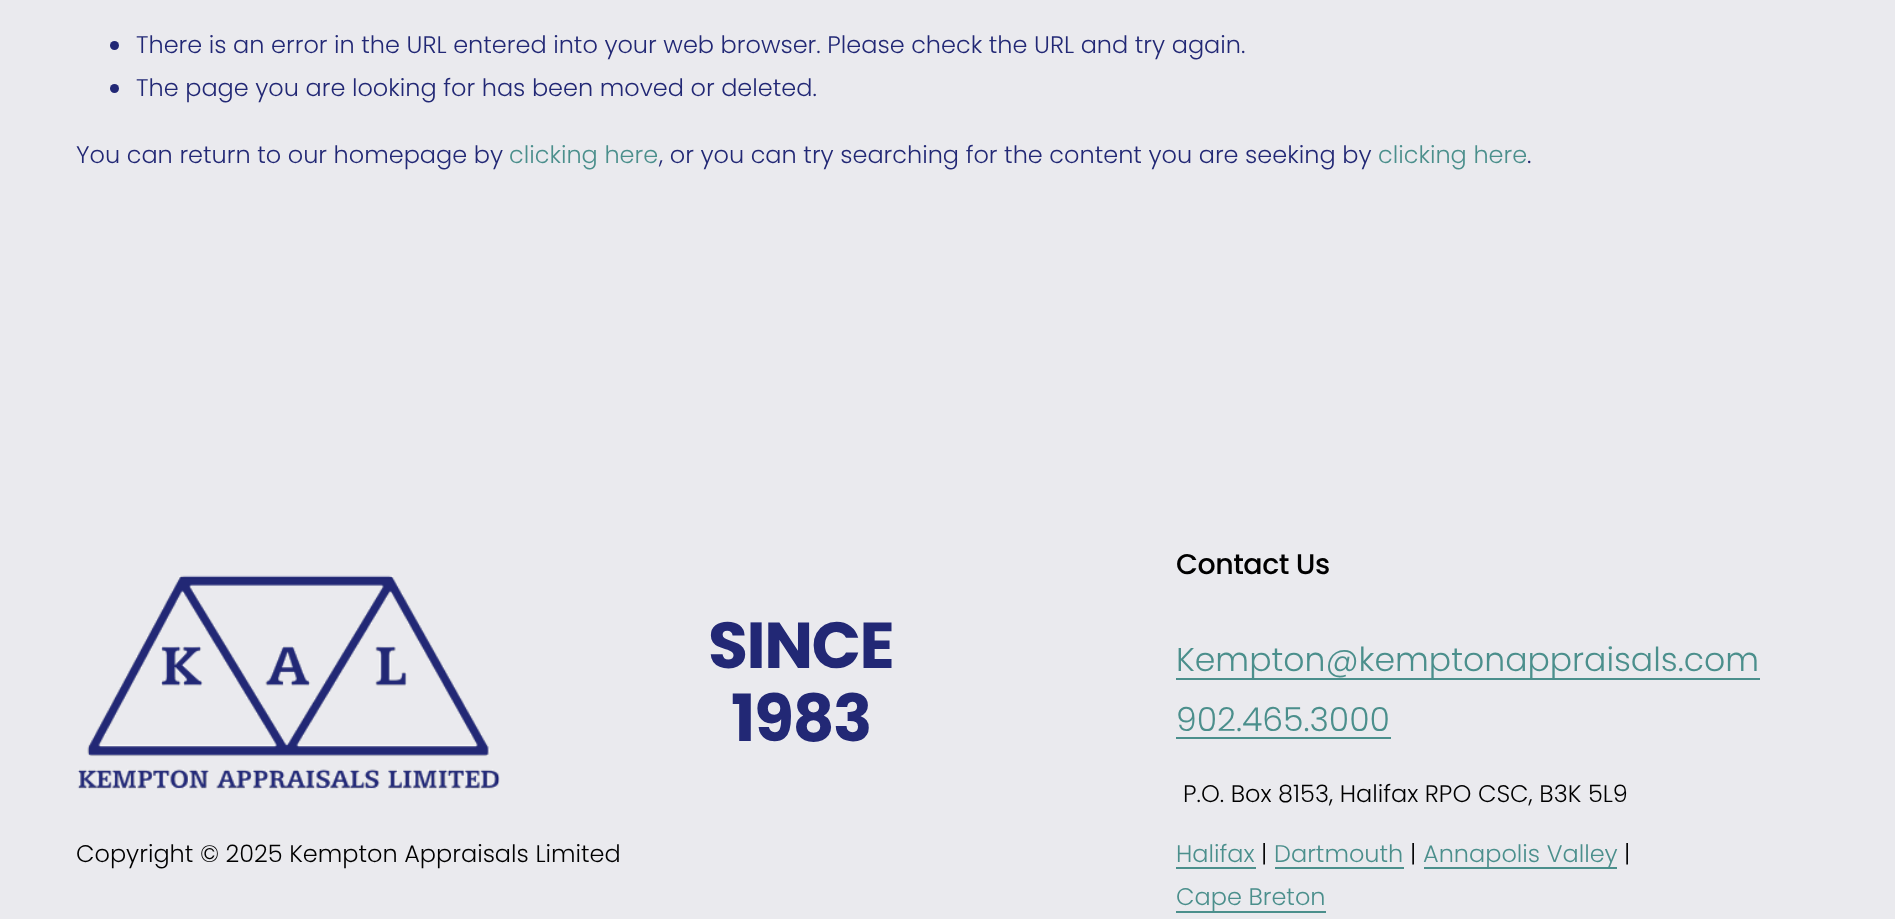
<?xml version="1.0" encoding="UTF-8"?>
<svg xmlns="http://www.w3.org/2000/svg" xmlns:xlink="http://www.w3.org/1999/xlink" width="1895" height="919">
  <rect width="100%" height="100%" fill="#eaeaee" />
  <circle cx="114.5" cy="45.5" r="4.5" fill="#222875" />
  <circle cx="114.5" cy="88.5" r="4.5" fill="#222875" />
  <image x="77" y="575" width="423" height="215" xlink:href="image1.png" />
  <rect x="1176" y="678" width="584" height="2" fill="#4b8f8c" />
  <rect x="1176" y="737" width="215" height="2" fill="#4b8f8c" />
  <rect x="1176" y="867" width="80" height="2" fill="#4b8f8c" />
  <rect x="1275" y="867" width="129" height="2" fill="#4b8f8c" />
  <rect x="1424" y="867" width="193" height="2" fill="#4b8f8c" />
  <rect x="1176" y="911" width="150" height="2" fill="#4b8f8c" />
  <text x="136" y="53" style="font-family: Poppins; font-size: 24px; font-weight: 300; fill: #222875">There is an error in the URL entered into your web browser. Please check the URL and try again.</text>
  <text x="136" y="96" style="font-family: Poppins; font-size: 24px; font-weight: 300; fill: #222875">The page you are looking for has been moved or deleted.</text>
  <text x="76" y="163" style="font-family: Poppins; font-size: 24px; font-weight: 300; fill: #222875">You can return to our homepage by</text>
  <text x="509" y="163" style="font-family: Poppins; font-size: 24px; font-weight: 300; fill: #4b8f8c">clicking here</text>
  <text x="659" y="163" style="font-family: Poppins; font-size: 24px; font-weight: 300; fill: #222875">, or you can try searching for the content you are seeking by</text>
  <text x="1378" y="163" style="font-family: Poppins; font-size: 24px; font-weight: 300; fill: #4b8f8c">clicking here</text>
  <text x="1527" y="163" style="font-family: Poppins; font-size: 24px; font-weight: 300; fill: #222875">.</text>
  <text x="708" y="668" style="font-family: Poppins; font-size: 65px; font-weight: bold; letter-spacing: -1.5px; fill: #222875">SINCE</text>
  <text x="731" y="741" style="font-family: Poppins; font-size: 65px; font-weight: bold; letter-spacing: -1.5px; fill: #222875">1983</text>
  <text x="1176" y="574" style="font-family: Poppins; font-size: 28.5px; font-weight: 500; letter-spacing: -0.5px; fill: #000000">Contact Us</text>
  <text x="1176" y="671" style="font-family: Poppins; font-size: 33.1px; font-weight: 300; fill: #4b8f8c">Kempton@kemptonappraisals.com</text>
  <text x="1176" y="731" style="font-family: Poppins; font-size: 33.1px; font-weight: 300; fill: #4b8f8c">902.465.3000</text>
  <text x="1183" y="802" style="font-family: Poppins; font-size: 24px; font-weight: 300; fill: #000000">P.O. Box 8153, Halifax RPO CSC, B3K 5L9</text>
  <text x="76" y="862" style="font-family: Poppins; font-size: 24px; font-weight: 300; fill: #000000">Copyright © 2025 Kempton Appraisals Limited</text>
  <text x="1176" y="862" style="font-family: Poppins; font-size: 24px; font-weight: 300; fill: #4b8f8c">Halifax</text>
  <text x="1261" y="862" style="font-family: Poppins; font-size: 24px; font-weight: 300; fill: #000000">|</text>
  <text x="1274" y="862" style="font-family: Poppins; font-size: 24px; font-weight: 300; fill: #4b8f8c">Dartmouth</text>
  <text x="1410" y="862" style="font-family: Poppins; font-size: 24px; font-weight: 300; fill: #000000">|</text>
  <text x="1423" y="862" style="font-family: Poppins; font-size: 24px; font-weight: 300; fill: #4b8f8c">Annapolis Valley</text>
  <text x="1624" y="862" style="font-family: Poppins; font-size: 24px; font-weight: 300; fill: #000000">|</text>
  <text x="1176" y="905" style="font-family: Poppins; font-size: 24px; font-weight: 300; fill: #4b8f8c">Cape Breton</text>
</svg>
